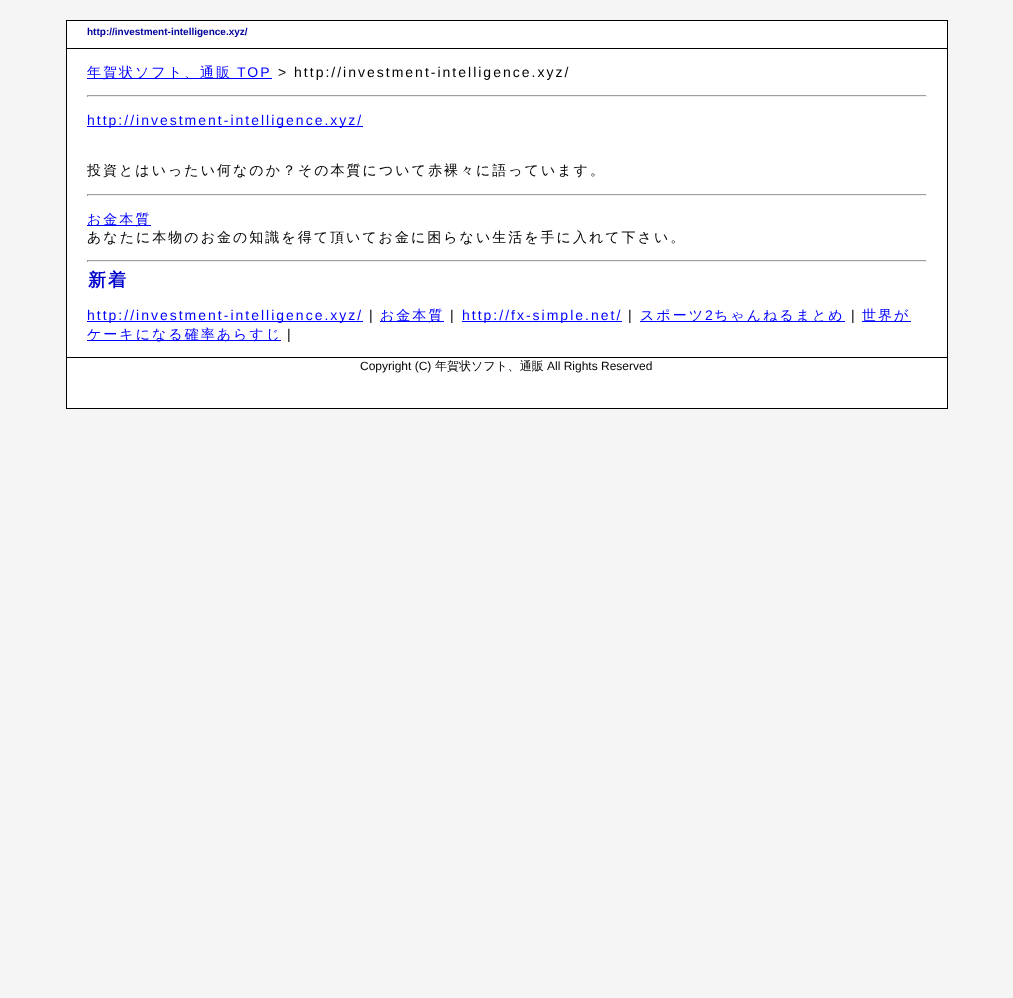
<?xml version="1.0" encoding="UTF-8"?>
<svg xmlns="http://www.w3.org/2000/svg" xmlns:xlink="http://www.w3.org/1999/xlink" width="1013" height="998">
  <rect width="100%" height="100%" fill="#f5f5f5" />
  <rect x="67" y="21" width="880" height="27" fill="#ffffff" />
  <rect x="66" y="20" width="882" height="1" fill="#000000" />
  <rect x="947" y="20" width="1" height="28" fill="#000000" />
  <rect x="66" y="20" width="1" height="28" fill="#000000" />
  <rect x="66.5" y="48.5" width="881" height="309" fill="#ffffff" stroke="#000000" />
  <rect x="87" y="78" width="185" height="1" fill="#0000ff" />
  <rect x="87" y="95" width="840" height="1" fill="#9f9f9f" />
  <rect x="926" y="95" width="1" height="2" fill="#eeeeee" />
  <rect x="87" y="96" width="840" height="1" fill="#eeeeee" />
  <rect x="87" y="95" width="1" height="2" fill="#9f9f9f" />
  <rect x="87" y="126" width="276" height="1" fill="#0000ff" />
  <rect x="87" y="194" width="840" height="1" fill="#9f9f9f" />
  <rect x="926" y="194" width="1" height="2" fill="#eeeeee" />
  <rect x="87" y="195" width="840" height="1" fill="#eeeeee" />
  <rect x="87" y="194" width="1" height="2" fill="#9f9f9f" />
  <rect x="87" y="225" width="64" height="1" fill="#0000ff" />
  <rect x="87" y="260" width="840" height="1" fill="#9f9f9f" />
  <rect x="926" y="260" width="1" height="2" fill="#eeeeee" />
  <rect x="87" y="261" width="840" height="1" fill="#eeeeee" />
  <rect x="87" y="260" width="1" height="2" fill="#9f9f9f" />
  <rect x="87" y="321" width="276" height="1" fill="#0000ff" />
  <rect x="380" y="321" width="64" height="1" fill="#0000ff" />
  <rect x="462" y="321" width="160" height="1" fill="#0000ff" />
  <rect x="640" y="321" width="205" height="1" fill="#0000ff" />
  <rect x="862" y="321" width="49" height="1" fill="#0000ff" />
  <rect x="87" y="340" width="194" height="1" fill="#0000ff" />
  <rect x="67" y="358" width="880" height="50" fill="#ffffff" />
  <rect x="947" y="358" width="1" height="51" fill="#000000" />
  <rect x="66" y="408" width="882" height="1" fill="#000000" />
  <rect x="66" y="358" width="1" height="51" fill="#000000" />
  <text x="87" y="35" style="font-family: Liberation Sans; font-size: 10px; font-weight: bold; fill: #000099">http://investment-intelligence.xyz/</text>
  <text x="87" y="77" style="font-family: WenQuanYi Zen Hei; font-size: 14px; font-weight: 500; letter-spacing: 2px; fill: #0000ff">年賀状ソフト、通販</text>
  <text x="237" y="77" style="font-family: Liberation Sans; font-size: 14px; letter-spacing: 2px; fill: #0000ff">TOP</text>
  <text x="278" y="77" style="font-family: Liberation Sans; font-size: 14px; letter-spacing: 2px; fill: #000000">&gt; http://investment-intelligence.xyz/</text>
  <text x="87" y="125" style="font-family: Liberation Sans; font-size: 14px; letter-spacing: 2px; fill: #0000ff">http://investment-intelligence.xyz/</text>
  <text x="87" y="175" style="font-family: WenQuanYi Zen Hei; font-size: 14px; font-weight: 500; letter-spacing: 2px; fill: #000000">投資とはいったい何なのか？その本質について赤裸々に語っています。</text>
  <text x="87" y="224" style="font-family: WenQuanYi Zen Hei; font-size: 14px; font-weight: 500; letter-spacing: 2px; fill: #0000ff">お金本質</text>
  <text x="87" y="242" style="font-family: WenQuanYi Zen Hei; font-size: 14px; font-weight: 500; letter-spacing: 2px; fill: #000000">あなたに本物のお金の知識を得て頂いてお金に困らない生活を手に入れて下さい。</text>
  <text x="88" y="286" style="font-family: WenQuanYi Zen Hei; font-size: 18px; font-weight: bold; letter-spacing: 2px; fill: #0000cc">新着</text>
  <text x="87" y="320" style="font-family: Liberation Sans; font-size: 14px; letter-spacing: 2px; fill: #0000ff">http://investment-intelligence.xyz/</text>
  <text x="369" y="320" style="font-family: Liberation Sans; font-size: 14px; letter-spacing: 2px; fill: #000000">|</text>
  <text x="380" y="320" style="font-family: WenQuanYi Zen Hei; font-size: 14px; font-weight: 500; letter-spacing: 2px; fill: #0000ff">お金本質</text>
  <text x="450" y="320" style="font-family: Liberation Sans; font-size: 14px; letter-spacing: 2px; fill: #000000">|</text>
  <text x="462" y="320" style="font-family: Liberation Sans; font-size: 14px; letter-spacing: 2px; fill: #0000ff">http://fx-simple.net/</text>
  <text x="628" y="320" style="font-family: Liberation Sans; font-size: 14px; letter-spacing: 2px; fill: #000000">|</text>
  <text x="640" y="320" style="font-family: WenQuanYi Zen Hei; font-size: 14px; font-weight: 500; letter-spacing: 2px; fill: #0000ff">スポーツ</text>
  <text x="705" y="320" style="font-family: Liberation Sans; font-size: 14px; letter-spacing: 2px; fill: #0000ff">2</text>
  <text x="714" y="320" style="font-family: WenQuanYi Zen Hei; font-size: 14px; font-weight: 500; letter-spacing: 2px; fill: #0000ff">ちゃんねるまとめ</text>
  <text x="851" y="320" style="font-family: Liberation Sans; font-size: 14px; letter-spacing: 2px; fill: #000000">|</text>
  <text x="862" y="320" style="font-family: WenQuanYi Zen Hei; font-size: 14px; font-weight: 500; letter-spacing: 2px; fill: #0000ff">世界が</text>
  <text x="87" y="339" style="font-family: WenQuanYi Zen Hei; font-size: 14px; font-weight: 500; letter-spacing: 2px; fill: #0000ff">ケーキになる確率あらすじ</text>
  <text x="287" y="339" style="font-family: Liberation Sans; font-size: 14px; letter-spacing: 2px; fill: #000000">|</text>
  <text x="360" y="370" style="font-family: Liberation Sans; font-size: 12px; fill: #000000">Copyright (C)</text>
  <text x="435" y="370" style="font-family: WenQuanYi Zen Hei; font-size: 12px; font-weight: 500; fill: #000000">年賀状ソフト、通販</text>
  <text x="547" y="370" style="font-family: Liberation Sans; font-size: 12px; fill: #000000">All Rights Reserved</text>
</svg>
